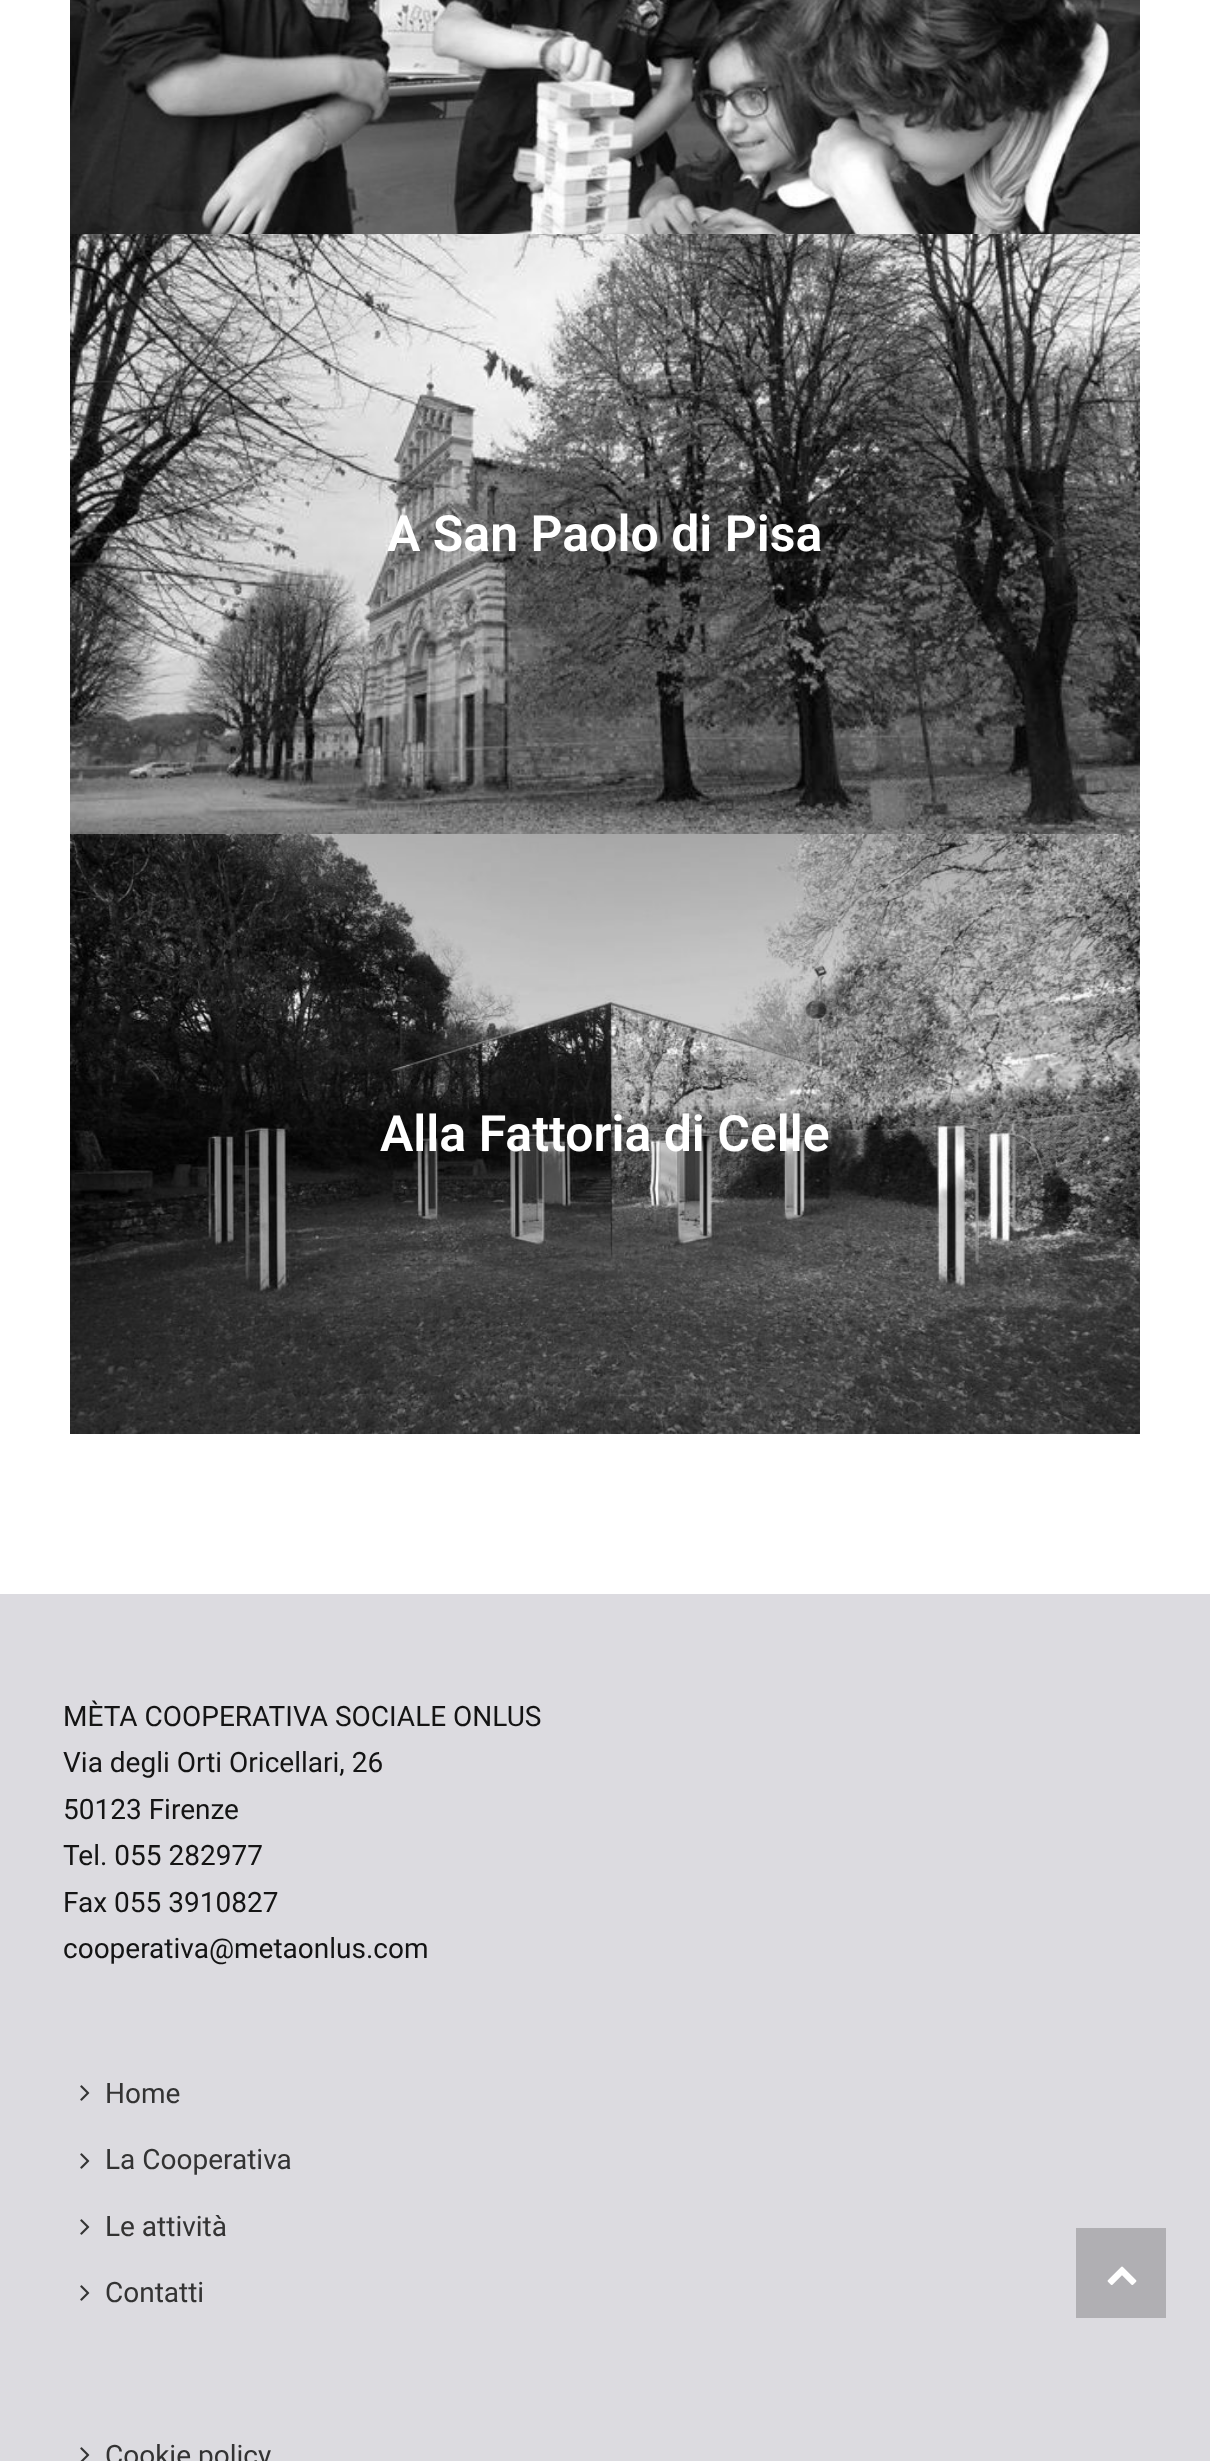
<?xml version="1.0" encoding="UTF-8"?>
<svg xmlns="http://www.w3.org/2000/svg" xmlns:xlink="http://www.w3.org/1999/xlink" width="1210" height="2461">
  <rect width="100%" height="100%" fill="#ffffff" />
  <image x="70" y="0" width="1070" height="234" xlink:href="image1.png" />
  <image x="70" y="234" width="1070" height="600" xlink:href="image2.png" />
  <image x="70" y="834" width="1070" height="600" xlink:href="image3.png" />
  <rect y="1594" width="1210" height="867" fill="#dcdbe0" />
  <image x="80" y="2085" width="10" height="16" xlink:href="image4.png" />
  <image x="80" y="2153" width="10" height="16" xlink:href="image4.png" />
  <image x="80" y="2219" width="10" height="16" xlink:href="image4.png" />
  <image x="80" y="2285" width="10" height="16" xlink:href="image4.png" />
  <image x="80" y="2447" width="10" height="14" xlink:href="image5.png" />
  <rect x="1076" y="2228" width="90" height="90" fill="#b0afb3" />
  <image x="1107" y="2266" width="30" height="19" xlink:href="image6.png" />
  <text x="387" y="551" style="font-family: Roboto; font-size: 50px; font-weight: 600; fill: #ffffff">A San Paolo di Pisa</text>
  <text x="380" y="1151" style="font-family: Roboto; font-size: 50px; font-weight: 600; fill: #ffffff">Alla Fattoria di Celle</text>
  <text x="63" y="1726" style="font-family: Roboto; font-size: 28px; fill: #141414">MÈTA COOPERATIVA SOCIALE ONLUS</text>
  <text x="63" y="1772" style="font-family: Roboto; font-size: 28px; fill: #141414">Via degli Orti Oricellari, 26</text>
  <text x="63" y="1819" style="font-family: Roboto; font-size: 28px; fill: #141414">50123 Firenze</text>
  <text x="63" y="1865" style="font-family: Roboto; font-size: 28px; fill: #141414">Tel. 055 282977</text>
  <text x="63" y="1912" style="font-family: Roboto; font-size: 28px; fill: #141414">Fax 055 3910827</text>
  <text x="63" y="1958" style="font-family: Roboto; font-size: 28px; fill: #141414">cooperativa@metaonlus.com</text>
  <text x="105" y="2103" style="font-family: Roboto; font-size: 28px; fill: #333333">Home</text>
  <text x="105" y="2169" style="font-family: Roboto; font-size: 28px; fill: #333333">La Cooperativa</text>
  <text x="105" y="2236" style="font-family: Roboto; font-size: 28px; fill: #333333">Le attività</text>
  <text x="105" y="2302" style="font-family: Roboto; font-size: 28px; fill: #333333">Contatti</text>
  <text x="105" y="2465" style="font-family: Roboto; font-size: 28px; fill: #333333">Cookie policy</text>
</svg>
